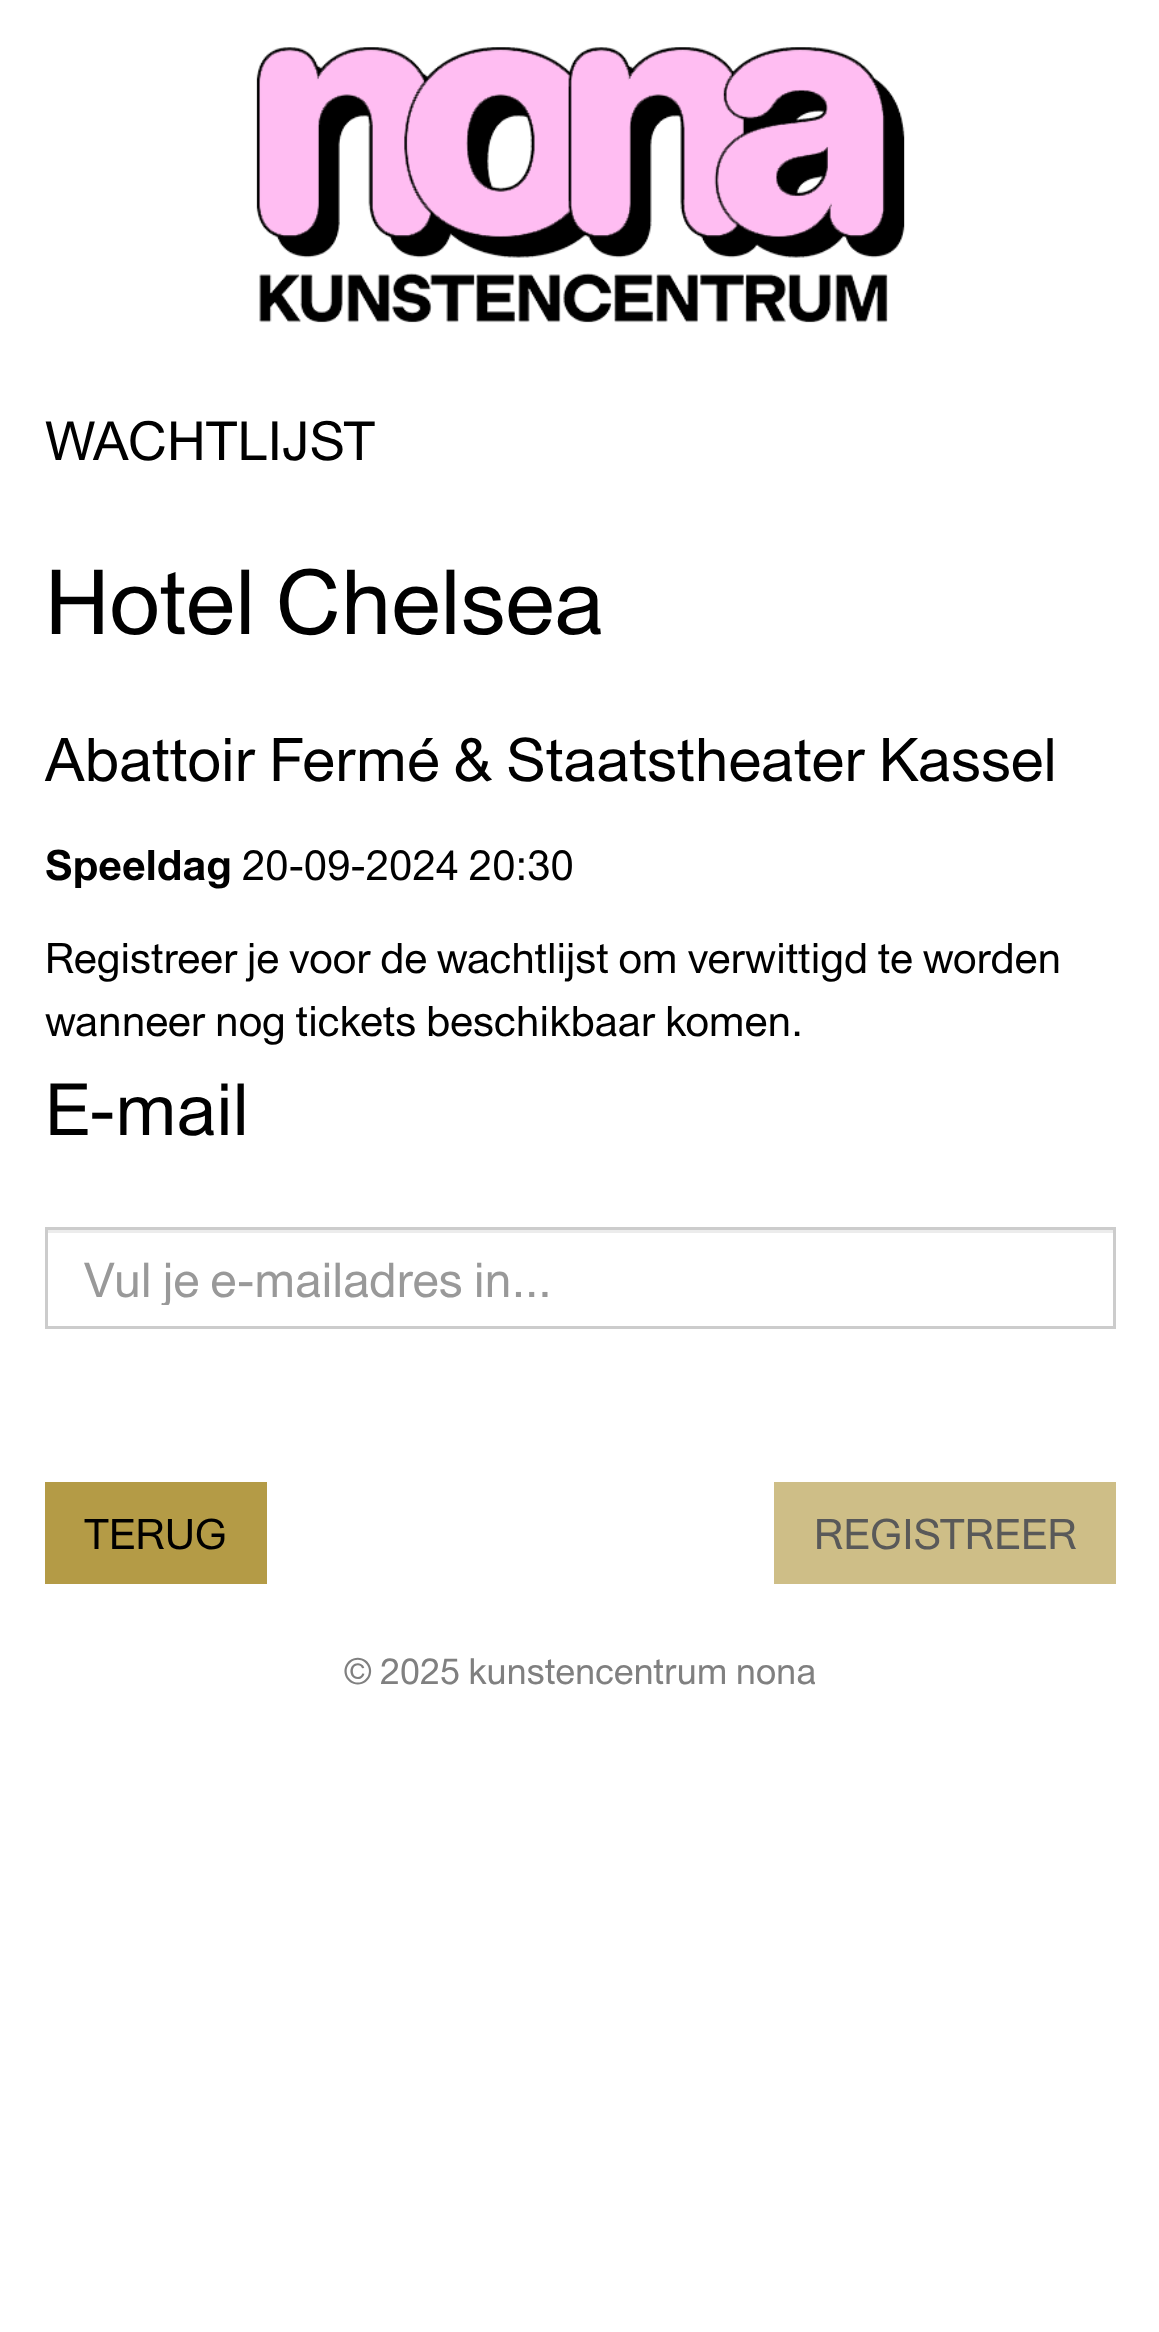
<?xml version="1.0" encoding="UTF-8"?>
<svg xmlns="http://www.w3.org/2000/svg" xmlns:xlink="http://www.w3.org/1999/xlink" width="1159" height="2332">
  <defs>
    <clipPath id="clip1"><rect x="84" y="1251" width="993" height="54" /></clipPath>
  </defs>
  <rect width="100%" height="100%" fill="#ffffff" />
  <image x="256" y="47" width="649" height="276" xlink:href="image1.png" />
  <rect x="48" y="1230" width="1065" height="3" fill="#ececec" />
  <rect x="46.5" y="1228.5" width="1068" height="99" fill="none" stroke="#cccccc" stroke-width="3" />
  <rect x="45" y="1482" width="222" height="102" fill="#b49b46" />
  <rect x="774" y="1482" width="342" height="102" fill="#cebe87" />
  <text x="45" y="460" style="font-family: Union; font-size: 54px; fill: #000000">WACHTLIJST</text>
  <text x="45" y="634" style="font-family: Union; font-size: 90px; fill: #000000">Hotel Chelsea</text>
  <text x="45" y="781" style="font-family: Union; font-size: 60px; fill: #000000">Abattoir Fermé &amp; Staatstheater Kassel</text>
  <text x="45" y="880" style="font-family: Union; font-size: 42px; font-weight: bold; fill: #000000">Speeldag</text>
  <text x="242" y="880" style="font-family: Union; font-size: 42px; fill: #000000">20-09-2024 20:30</text>
  <text x="45" y="973" style="font-family: Union; font-size: 42px; fill: #000000">Registreer je voor de wachtlijst om verwittigd te worden</text>
  <text x="45" y="1036" style="font-family: Union; font-size: 42px; fill: #000000">wanneer nog tickets beschikbaar komen.</text>
  <text x="45" y="1135" style="font-family: Union; font-size: 72px; fill: #000000">E-mail</text>
  <g clip-path="url(#clip1)">
    <text x="84" y="1297" style="font-family: Union; font-size: 48px; fill: #999999">Vul je e-mailadres in...</text>
  </g>
  <text x="84" y="1549" style="font-family: Union; font-size: 42px; fill: #000000">TERUG</text>
  <text x="814" y="1549" style="font-family: Union; font-size: 42px; fill: #595959">REGISTREER</text>
  <text x="344" y="1684" style="font-family: Union; font-size: 36px; fill: #808080">© 2025 kunstencentrum nona</text>
</svg>
